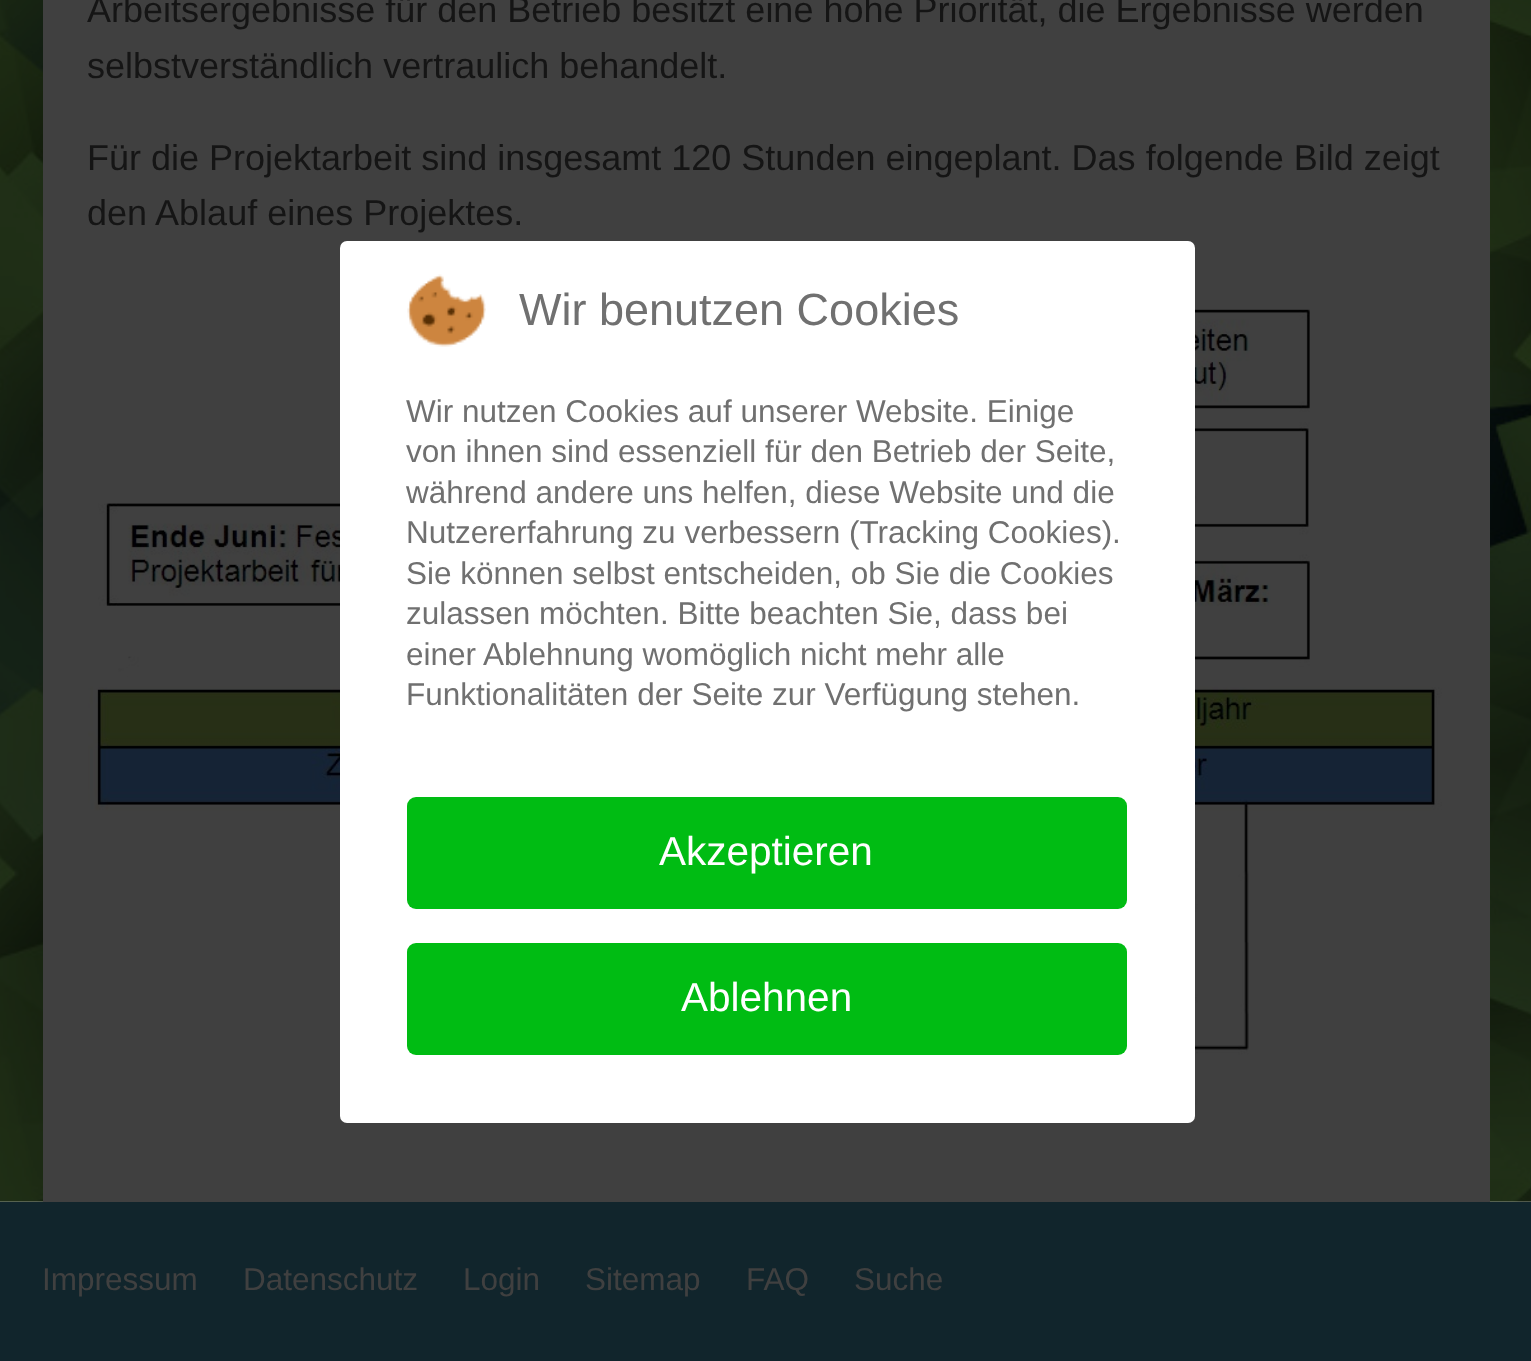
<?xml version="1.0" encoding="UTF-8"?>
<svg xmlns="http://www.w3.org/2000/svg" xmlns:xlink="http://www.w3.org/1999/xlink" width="1531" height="1361">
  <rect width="100%" height="100%" fill="#ffffff" />
  <image x="0" y="0" width="1531" height="1202" xlink:href="image1.png" />
  <rect x="43" width="1447" height="1202" fill="#404040" />
  <image x="88" y="309" width="1354" height="796" xlink:href="image2.png" />
  <rect y="1202" width="1531" height="159" fill="#11252c" />
  <rect x="340" y="241" width="855" height="882" rx="7" fill="#ffffff" />
  <image x="407" y="274" width="79" height="73" xlink:href="image3.png" />
  <rect x="407" y="797" width="720" height="112" rx="9" fill="#00bc13" />
  <rect x="407" y="943" width="720" height="112" rx="9" fill="#00bc13" />
  <text x="87" y="22" style="font-family: Liberation Sans; font-size: 36px; fill: #151515">Arbeitsergebnisse für den Betrieb besitzt eine hohe Priorität, die Ergebnisse werden</text>
  <text x="87" y="78" style="font-family: Liberation Sans; font-size: 36px; fill: #151515">selbstverständlich vertraulich behandelt.</text>
  <text x="87" y="170" style="font-family: Liberation Sans; font-size: 36px; fill: #151515">Für die Projektarbeit sind insgesamt 120 Stunden eingeplant. Das folgende Bild zeigt</text>
  <text x="87" y="225" style="font-family: Liberation Sans; font-size: 36px; fill: #151515">den Ablauf eines Projektes.</text>
  <text x="42" y="1290" style="font-family: Liberation Sans; font-size: 31.5px; fill: #404040">Impressum</text>
  <text x="243" y="1290" style="font-family: Liberation Sans; font-size: 31.5px; fill: #404040">Datenschutz</text>
  <text x="463" y="1290" style="font-family: Liberation Sans; font-size: 31.5px; fill: #404040">Login</text>
  <text x="585" y="1290" style="font-family: Liberation Sans; font-size: 31.5px; fill: #404040">Sitemap</text>
  <text x="746" y="1290" style="font-family: Liberation Sans; font-size: 31.5px; fill: #404040">FAQ</text>
  <text x="854" y="1290" style="font-family: Liberation Sans; font-size: 31.5px; fill: #404040">Suche</text>
  <text x="519" y="325" style="font-family: Liberation Sans; font-size: 45px; fill: #707070">Wir benutzen Cookies</text>
  <text x="406" y="422" style="font-family: Liberation Sans; font-size: 31.5px; fill: #707070">Wir nutzen Cookies auf unserer Website. Einige</text>
  <text x="406" y="462" style="font-family: Liberation Sans; font-size: 31.5px; fill: #707070">von ihnen sind essenziell für den Betrieb der Seite,</text>
  <text x="406" y="503" style="font-family: Liberation Sans; font-size: 31.5px; fill: #707070">während andere uns helfen, diese Website und die</text>
  <text x="406" y="543" style="font-family: Liberation Sans; font-size: 31.5px; fill: #707070">Nutzererfahrung zu verbessern (Tracking Cookies).</text>
  <text x="406" y="584" style="font-family: Liberation Sans; font-size: 31.5px; fill: #707070">Sie können selbst entscheiden, ob Sie die Cookies</text>
  <text x="406" y="624" style="font-family: Liberation Sans; font-size: 31.5px; fill: #707070">zulassen möchten. Bitte beachten Sie, dass bei</text>
  <text x="406" y="665" style="font-family: Liberation Sans; font-size: 31.5px; fill: #707070">einer Ablehnung womöglich nicht mehr alle</text>
  <text x="406" y="705" style="font-family: Liberation Sans; font-size: 31.5px; fill: #707070">Funktionalitäten der Seite zur Verfügung stehen.</text>
  <text x="659" y="865" style="font-family: Liberation Sans; font-size: 40.5px; fill: #ffffff">Akzeptieren</text>
  <text x="681" y="1011" style="font-family: Liberation Sans; font-size: 40.5px; fill: #ffffff">Ablehnen</text>
</svg>
